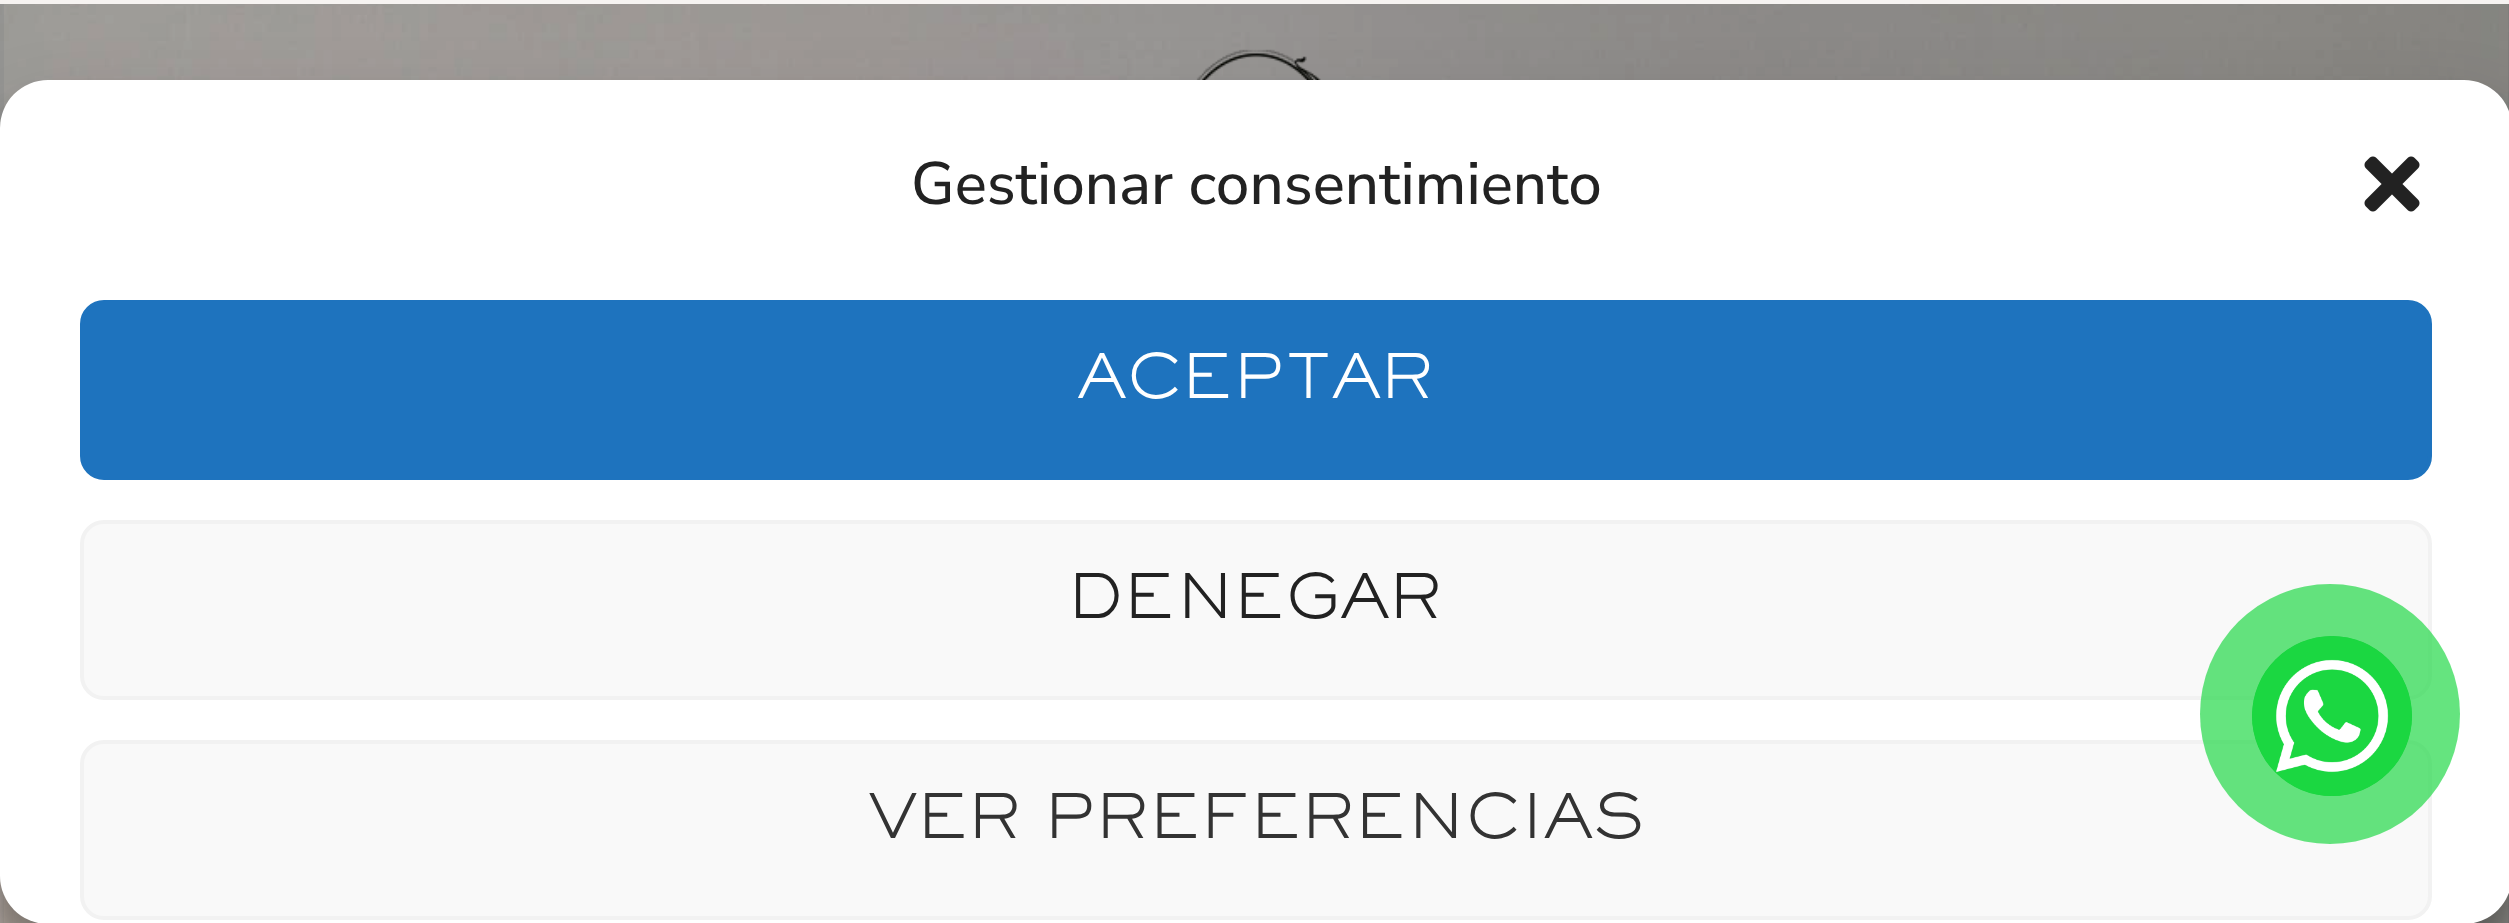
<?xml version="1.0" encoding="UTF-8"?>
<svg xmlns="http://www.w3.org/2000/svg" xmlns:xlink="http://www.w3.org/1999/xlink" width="2509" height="923">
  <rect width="100%" height="100%" fill="#f6f3f1" />
  <image x="0" y="4" width="2509" height="919" xlink:href="image1.png" />
  <rect x="2508" y="4" width="1" height="919" fill="#011640" fill-opacity="0.05" />
  <rect y="4" width="4" height="919" fill="#011640" fill-opacity="0.05" />
  <image x="1196" y="49" width="125" height="31" xlink:href="image2.png" />
  <rect y="104" width="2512" height="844" rx="48" fill="#000000" fill-opacity="0.23" filter="blur(12px)" />
  <rect y="120" width="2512" height="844" rx="48" fill="#000000" fill-opacity="0.19" filter="blur(40px)" />
  <rect y="80" width="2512" height="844" rx="48" fill="#ffffff" />
  <image x="2364" y="156" width="56" height="56" xlink:href="image3.png" />
  <rect x="82" y="302" width="2348" height="176" rx="22" fill="#1e73be" stroke="#1e73be" stroke-width="4" />
  <rect x="82" y="522" width="2348" height="176" rx="22" fill="#f9f9f9" stroke="#f2f2f2" stroke-width="4" />
  <rect x="82" y="742" width="2348" height="176" rx="22" fill="#f9f9f9" stroke="#f2f2f2" stroke-width="4" />
  <circle cx="2330" cy="714" r="130" fill="#23d948" fill-opacity="0.7" />
  <circle cx="2332" cy="716" r="80" fill="#1cd741" />
  <image x="2252" y="636" width="160" height="160" xlink:href="image4.png" />
  <text x="911" y="204" style="font-family: Nunito Sans; font-size: 60px; font-weight: 500; fill: #222222">Gestionar consentimiento</text>
  <text x="1077" y="398" style="font-family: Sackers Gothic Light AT; font-size: 60px; font-weight: 300; fill: #ffffff">ACEPTAR</text>
  <text x="1069" y="618" style="font-family: Sackers Gothic Light AT; font-size: 60px; font-weight: 300; fill: #222222">DENEGAR</text>
  <text x="868" y="838" style="font-family: Sackers Gothic Light AT; font-size: 60px; font-weight: 300; fill: #333333">VER PREFERENCIAS</text>
</svg>
